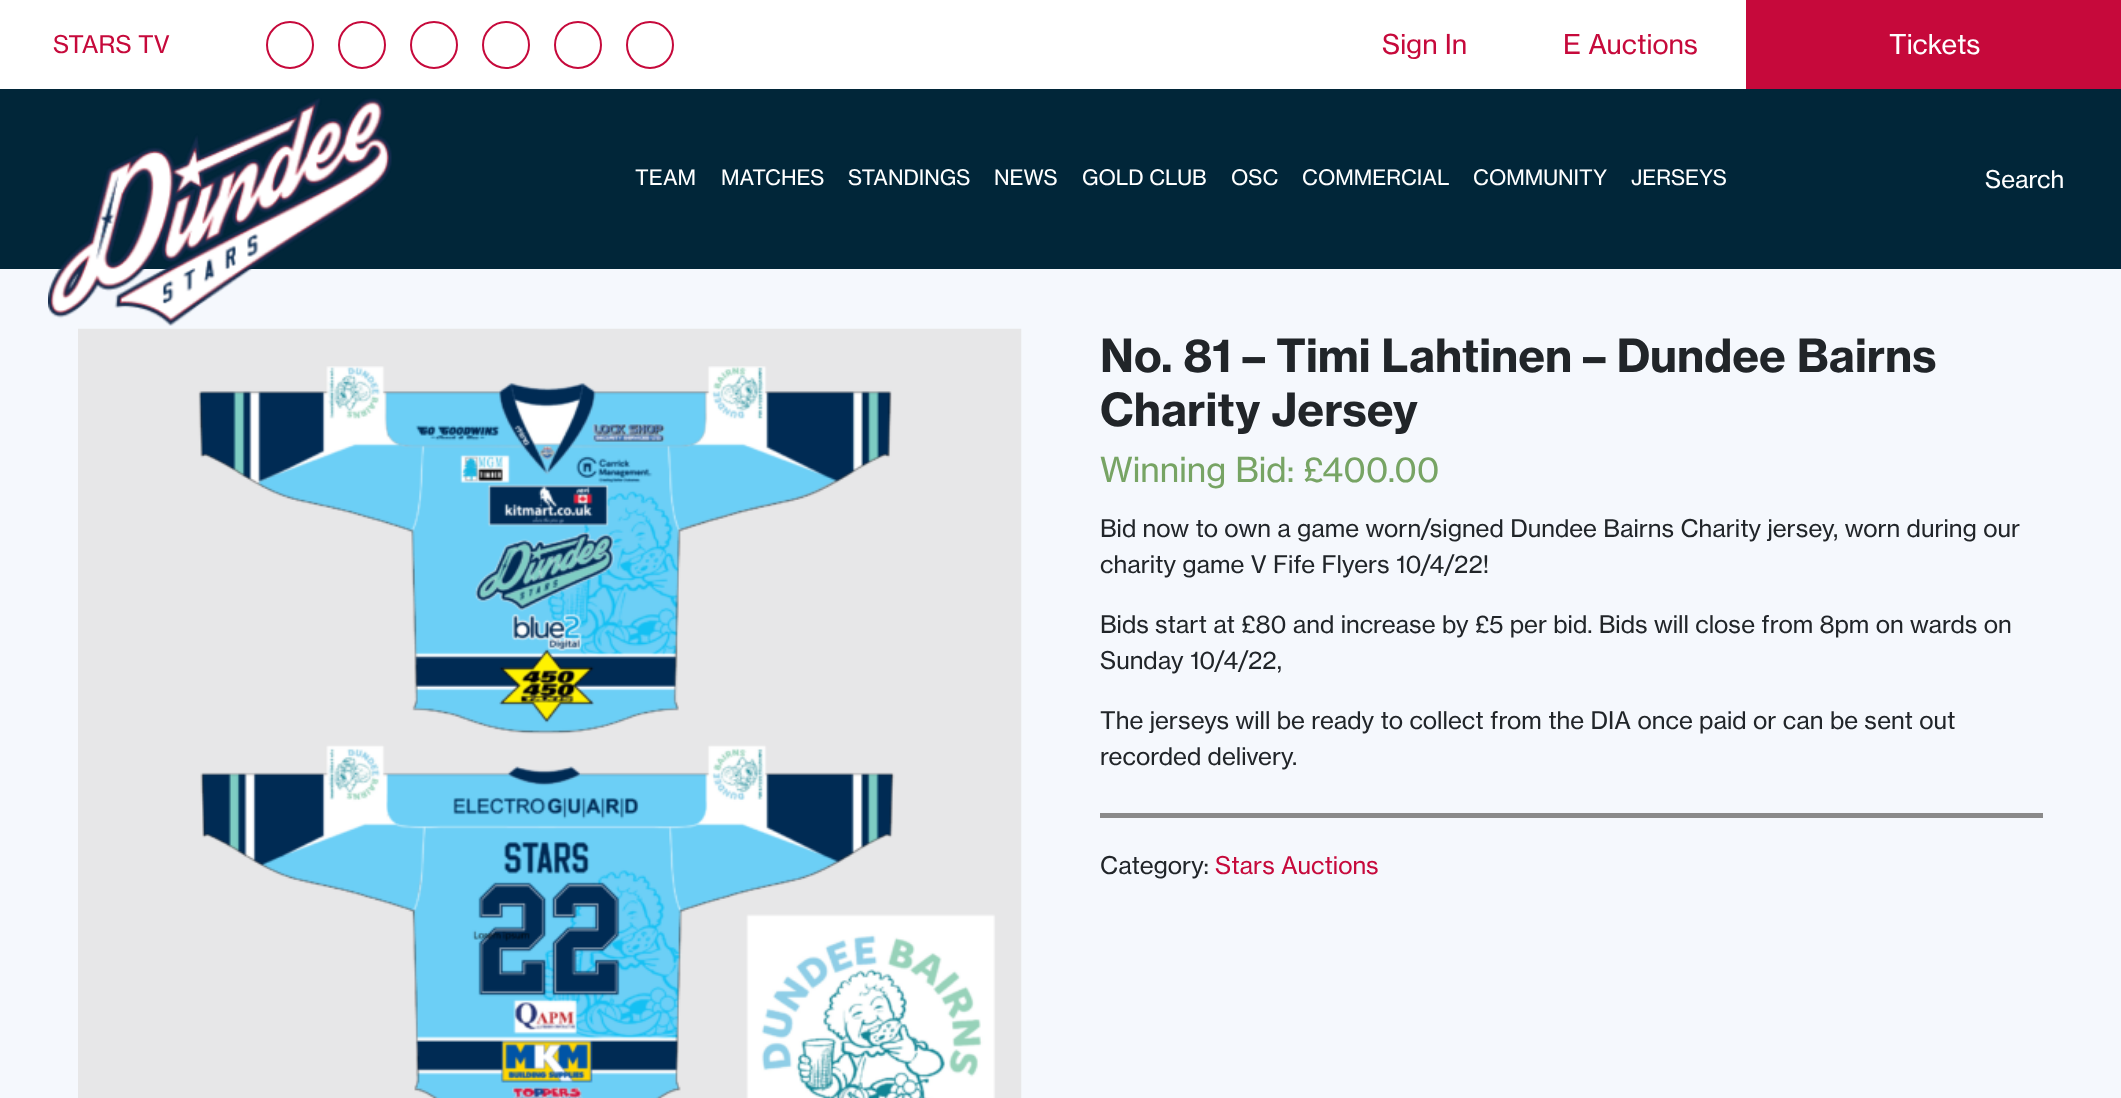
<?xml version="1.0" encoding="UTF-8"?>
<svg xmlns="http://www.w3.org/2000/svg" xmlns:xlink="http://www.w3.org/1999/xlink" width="2121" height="1098">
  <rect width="100%" height="100%" fill="#f5f8fd" />
  <rect width="1746" height="89" fill="#ffffff" />
  <circle cx="290" cy="45" r="23" fill="none" stroke="#c6093b" stroke-width="2" />
  <circle cx="362" cy="45" r="23" fill="none" stroke="#c6093b" stroke-width="2" />
  <circle cx="434" cy="45" r="23" fill="none" stroke="#c6093b" stroke-width="2" />
  <circle cx="506" cy="45" r="23" fill="none" stroke="#c6093b" stroke-width="2" />
  <circle cx="578" cy="45" r="23" fill="none" stroke="#c6093b" stroke-width="2" />
  <circle cx="650" cy="45" r="23" fill="none" stroke="#c6093b" stroke-width="2" />
  <rect x="1746" width="375" height="89" fill="#c6093b" />
  <rect y="89" width="2121" height="180" fill="#012639" />
  <image x="48" y="98" width="344" height="228" xlink:href="image1.png" />
  <image x="78" y="328" width="944" height="770" xlink:href="image2.png" />
  <rect x="1100" y="813" width="943" height="5" fill="#8a8a8a" />
  <text x="53" y="53" style="font-family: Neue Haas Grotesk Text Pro; font-size: 24px; fill: #c6093b">STARS TV</text>
  <text x="1382" y="54" style="font-family: Neue Haas Grotesk Text Pro; font-size: 27px; fill: #c6093b">Sign In</text>
  <text x="1563" y="54" style="font-family: Neue Haas Grotesk Text Pro; font-size: 27px; fill: #c6093b">E Auctions</text>
  <text x="1889" y="54" style="font-family: Neue Haas Grotesk Text Pro; font-size: 27px; fill: #ffffff">Tickets</text>
  <text x="635" y="185" style="font-family: Neue Haas Grotesk Text Pro; font-size: 21px; fill: #ffffff">TEAM</text>
  <text x="721" y="185" style="font-family: Neue Haas Grotesk Text Pro; font-size: 21px; fill: #ffffff">MATCHES</text>
  <text x="848" y="185" style="font-family: Neue Haas Grotesk Text Pro; font-size: 21px; fill: #ffffff">STANDINGS</text>
  <text x="994" y="185" style="font-family: Neue Haas Grotesk Text Pro; font-size: 21px; fill: #ffffff">NEWS</text>
  <text x="1082" y="185" style="font-family: Neue Haas Grotesk Text Pro; font-size: 21px; fill: #ffffff">GOLD CLUB</text>
  <text x="1231" y="185" style="font-family: Neue Haas Grotesk Text Pro; font-size: 21px; fill: #ffffff">OSC</text>
  <text x="1302" y="185" style="font-family: Neue Haas Grotesk Text Pro; font-size: 21px; fill: #ffffff">COMMERCIAL</text>
  <text x="1473" y="185" style="font-family: Neue Haas Grotesk Text Pro; font-size: 21px; fill: #ffffff">COMMUNITY</text>
  <text x="1631" y="185" style="font-family: Neue Haas Grotesk Text Pro; font-size: 21px; fill: #ffffff">JERSEYS</text>
  <text x="1985" y="188" style="font-family: Neue Haas Grotesk Text Pro; font-size: 24px; fill: #ffffff">Search</text>
  <text x="1100" y="372" style="font-family: Neue Haas Grotesk Text Pro; font-size: 45px; font-weight: bold; fill: #212529">No. 81 – Timi Lahtinen – Dundee Bairns</text>
  <text x="1100" y="426" style="font-family: Neue Haas Grotesk Text Pro; font-size: 45px; font-weight: bold; fill: #212529">Charity Jersey</text>
  <text x="1100" y="482" style="font-family: Neue Haas Grotesk Text Pro; font-size: 34px; fill: #77a464">Winning Bid: £</text>
  <text x="1322" y="482" style="font-family: Neue Haas Grotesk Text Pro; font-size: 34px; fill: #77a464">400.00</text>
  <text x="1100" y="537" style="font-family: Neue Haas Grotesk Text Pro; font-size: 24px; fill: #212529">Bid now to own a game worn/signed Dundee Bairns Charity jersey, worn during our</text>
  <text x="1100" y="573" style="font-family: Neue Haas Grotesk Text Pro; font-size: 24px; fill: #212529">charity game V Fife Flyers 10/4/22!</text>
  <text x="1100" y="633" style="font-family: Neue Haas Grotesk Text Pro; font-size: 24px; fill: #212529">Bids start at £80 and increase by £5 per bid. Bids will close from 8pm on wards on</text>
  <text x="1100" y="669" style="font-family: Neue Haas Grotesk Text Pro; font-size: 24px; fill: #212529">Sunday 10/4/22,</text>
  <text x="1100" y="729" style="font-family: Neue Haas Grotesk Text Pro; font-size: 24px; fill: #212529">The jerseys will be ready to collect from the DIA once paid or can be sent out</text>
  <text x="1100" y="765" style="font-family: Neue Haas Grotesk Text Pro; font-size: 24px; fill: #212529">recorded delivery.</text>
  <text x="1100" y="874" style="font-family: Neue Haas Grotesk Text Pro; font-size: 24px; fill: #212529">Category:</text>
  <text x="1215" y="874" style="font-family: Neue Haas Grotesk Text Pro; font-size: 24px; fill: #c6093b">Stars Auctions</text>
</svg>
